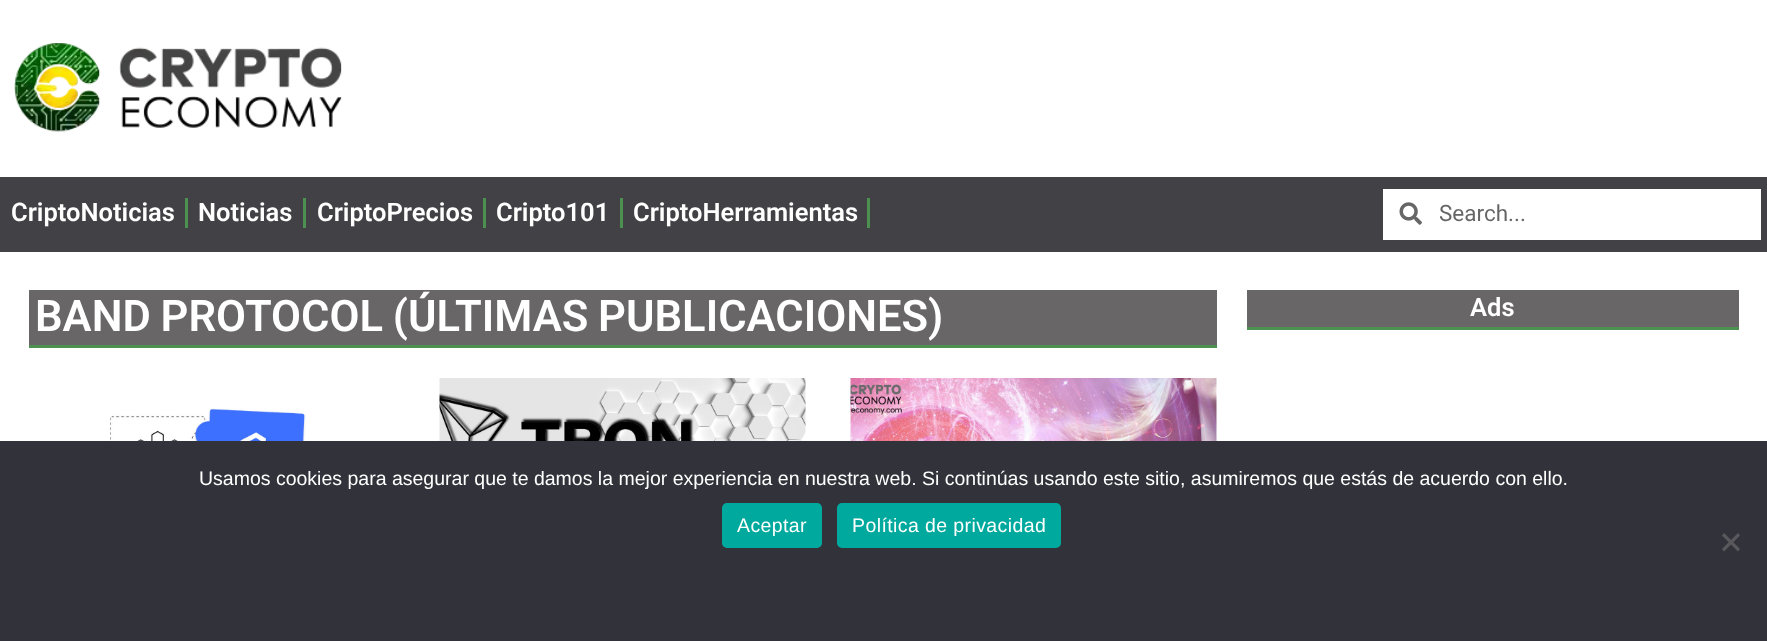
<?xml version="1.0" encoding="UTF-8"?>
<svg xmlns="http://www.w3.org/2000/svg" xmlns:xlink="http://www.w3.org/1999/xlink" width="1767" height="641">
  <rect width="100%" height="100%" fill="#ffffff" />
  <image x="14" y="43" width="328" height="89" xlink:href="image1.png" />
  <rect y="177" width="1767" height="75" fill="#424246" />
  <rect x="185" y="198" width="3" height="30" fill="#4c9150" />
  <rect x="303" y="198" width="3" height="30" fill="#4c9150" />
  <rect x="483" y="198" width="3" height="30" fill="#4c9150" />
  <rect x="620" y="198" width="3" height="30" fill="#4c9150" />
  <rect x="867" y="198" width="3" height="30" fill="#4c9150" />
  <rect x="1383" y="189" width="378" height="51" fill="#ffffff" />
  <image x="1399" y="202" width="23" height="23" xlink:href="image2.png" />
  <rect x="29" y="290" width="1188" height="55" fill="#686666" />
  <rect x="29" y="345" width="1188" height="3" fill="#4c9150" />
  <image x="110" y="408" width="196" height="33" xlink:href="image3.png" />
  <image x="439" y="378" width="367" height="63" xlink:href="image4.png" />
  <image x="850" y="378" width="367" height="63" xlink:href="image5.png" />
  <rect x="1247" y="290" width="492" height="37" fill="#686666" />
  <rect x="1247" y="327" width="492" height="3" fill="#4c9150" />
  <rect y="441" width="1767" height="200" fill="#32323a" />
  <rect x="722" y="503" width="100" height="45" rx="5" fill="#00a99d" />
  <rect x="837" y="503" width="224" height="45" rx="5" fill="#00a99d" />
  <path d="M 1738 533 l 2 2.5 l -16 16 l -2 -2.5 z" fill="#59595d" />
  <path d="M 1722 535.5 l 2 -2.5 l 16 16 l -2 2.5 z" fill="#59595d" />
  <text x="11" y="221" style="font-family: Roboto; font-size: 25.5px; font-weight: 600; fill: #ffffff">CriptoNoticias</text>
  <text x="198" y="221" style="font-family: Roboto; font-size: 25.5px; font-weight: 600; fill: #ffffff">Noticias</text>
  <text x="317" y="221" style="font-family: Roboto; font-size: 25.5px; font-weight: 600; fill: #ffffff">CriptoPrecios</text>
  <text x="496" y="221" style="font-family: Roboto; font-size: 25.5px; font-weight: 600; fill: #ffffff">Cripto101</text>
  <text x="633" y="221" style="font-family: Roboto; font-size: 25.5px; font-weight: 600; fill: #ffffff">CriptoHerramientas</text>
  <text x="1439" y="221" style="font-family: Roboto; font-size: 22.5px; fill: #666666">Search...</text>
  <text x="35" y="331" word-spacing="-1" style="font-family: Roboto; font-size: 43.5px; font-weight: 600; fill: #ffffff">BAND PROTOCOL (ÚLTIMAS PUBLICACIONES)</text>
  <text x="1470" y="316" style="font-family: Roboto; font-size: 25.5px; font-weight: 600; fill: #ffffff">Ads</text>
  <text x="199" y="485" style="font-family: Liberation Sans; font-size: 19.5px; fill: #ffffff">Usamos cookies para asegurar que te damos la mejor experiencia en nuestra web. Si continúas usando este sitio, asumiremos que estás de acuerdo con ello.</text>
  <text x="737" y="532" style="font-family: Liberation Sans; font-size: 19.5px; letter-spacing: 0.4px; fill: #ffffff">Aceptar</text>
  <text x="852" y="532" style="font-family: Liberation Sans; font-size: 19.5px; letter-spacing: 0.4px; fill: #ffffff">Política de privacidad</text>
</svg>
